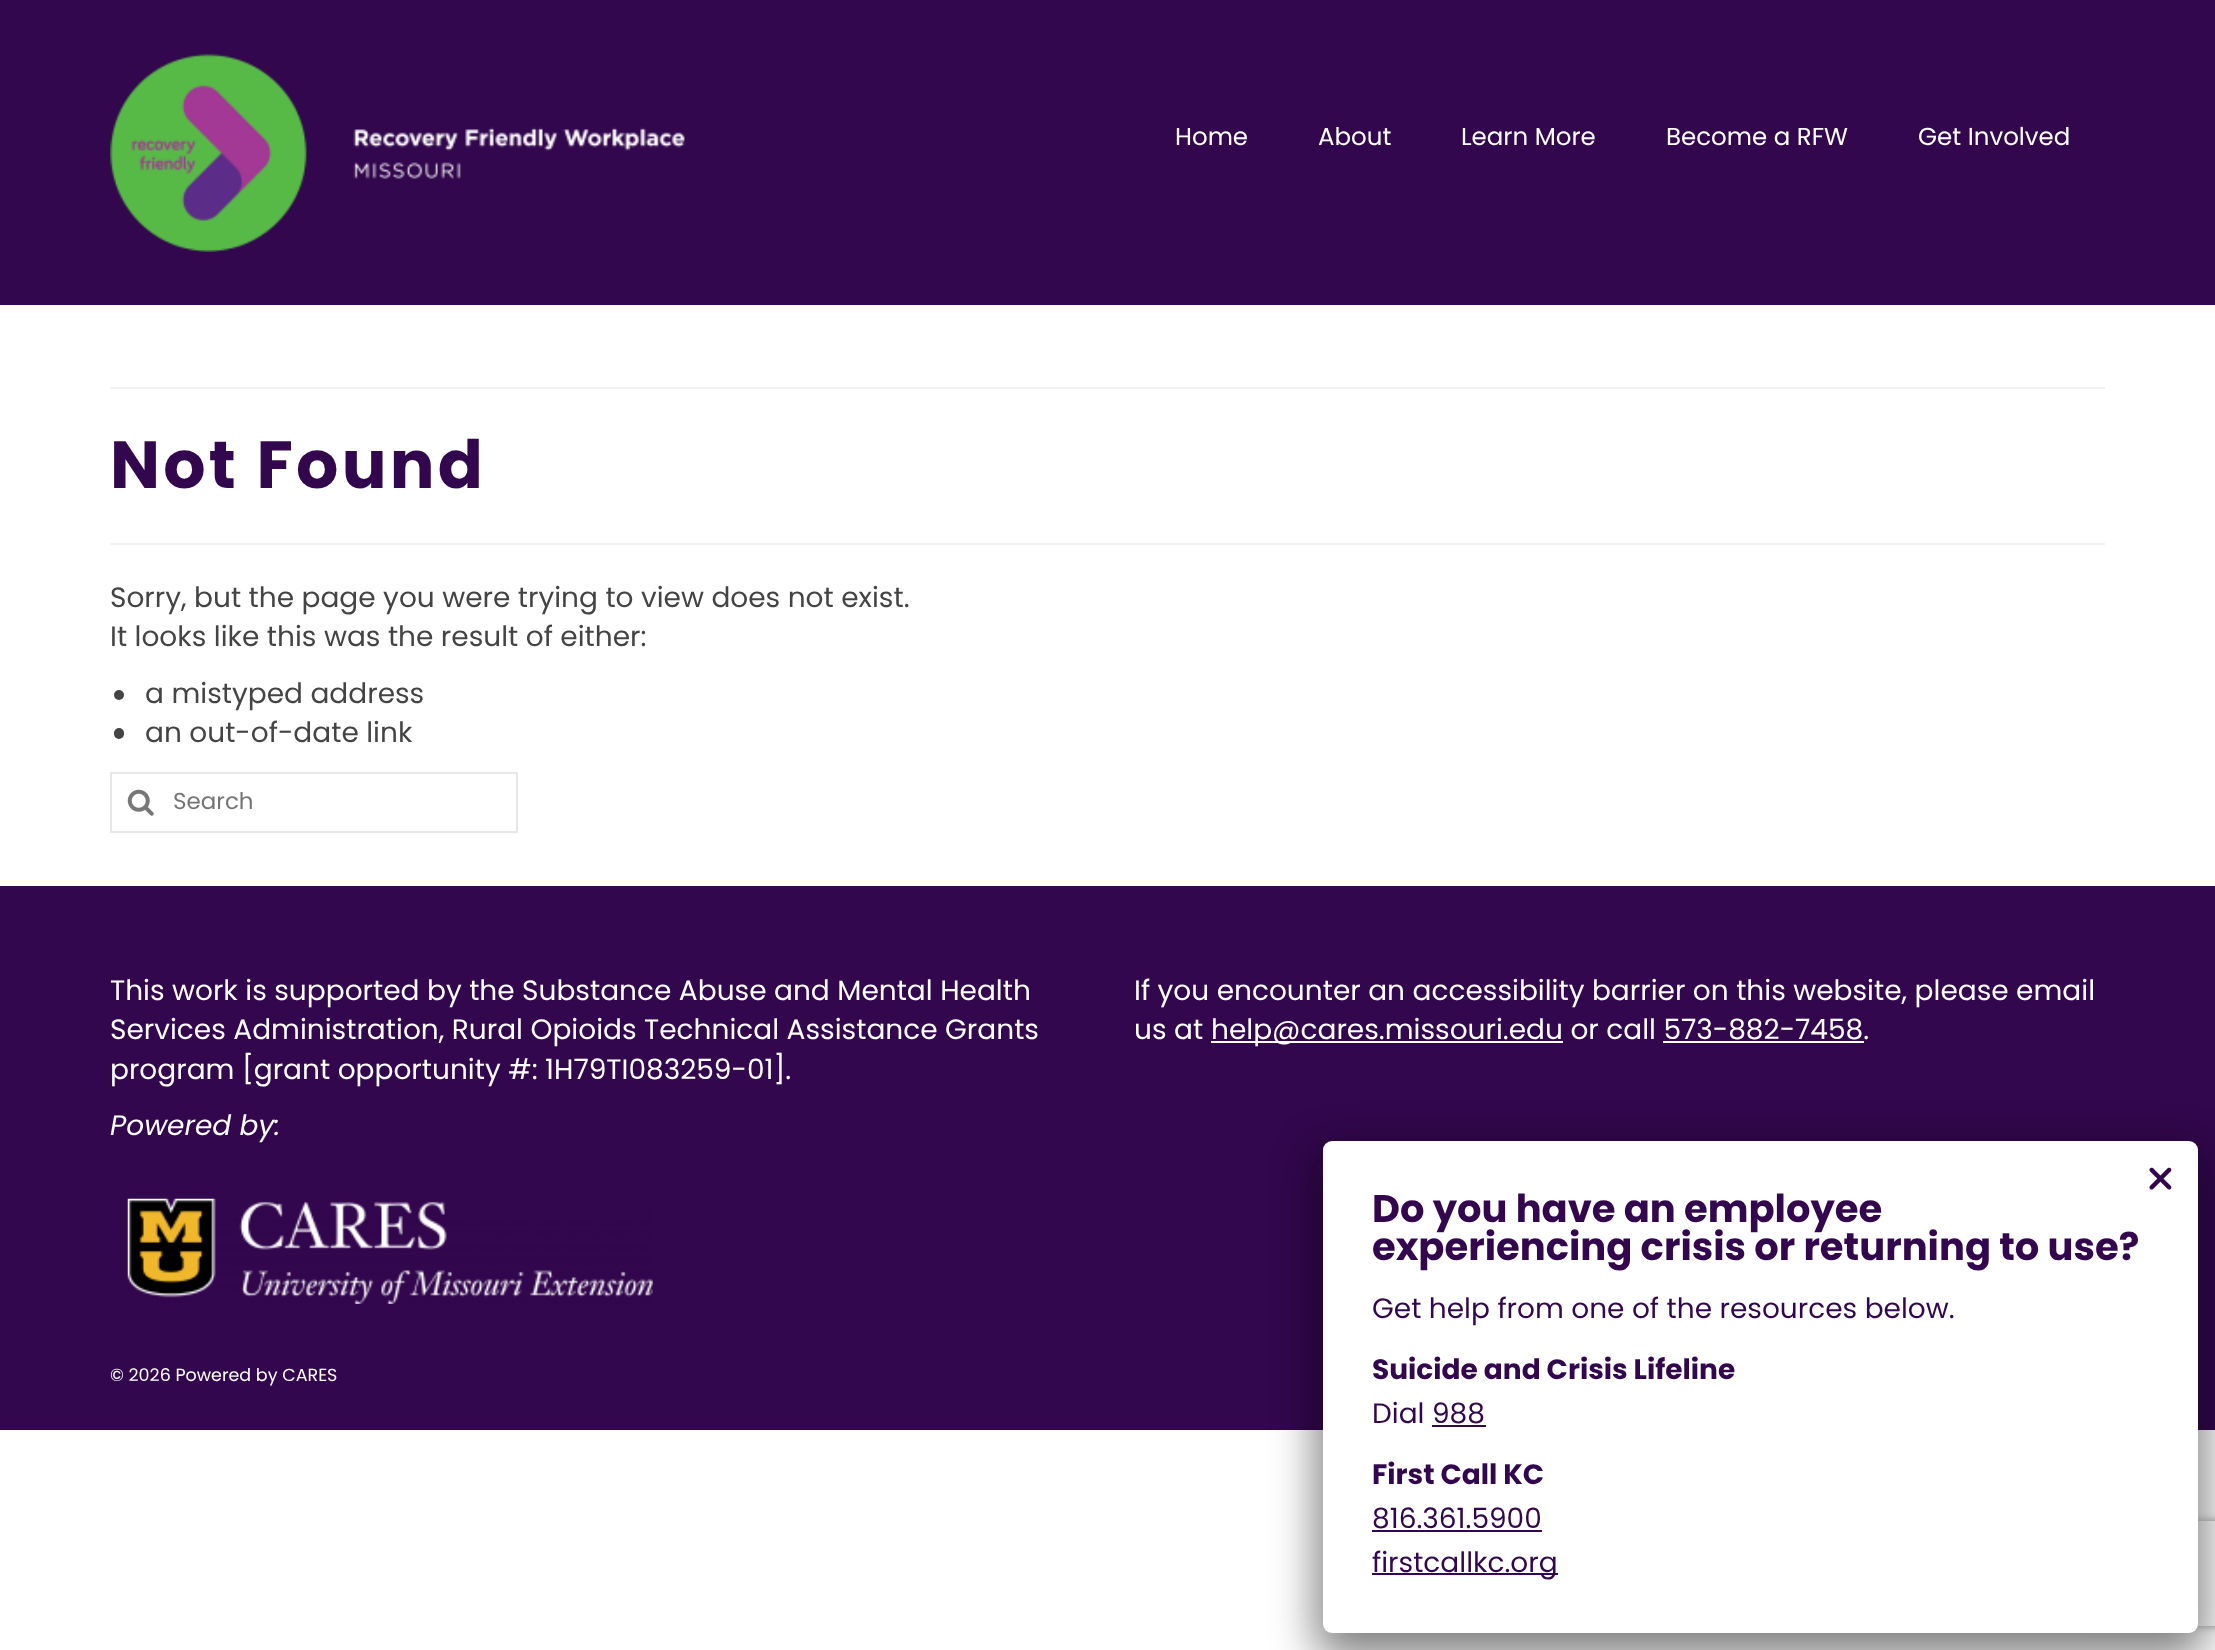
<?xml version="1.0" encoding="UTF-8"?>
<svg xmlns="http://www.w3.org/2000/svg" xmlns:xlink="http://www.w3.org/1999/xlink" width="2215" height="1650">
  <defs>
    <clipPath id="clip1"><path d="M 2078 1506 h 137 v 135 h -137 z m 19 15 h 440 c 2 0 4 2 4 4 v 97 c 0 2 -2 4 -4 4 h -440 c -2 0 -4 -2 -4 -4 v -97 c 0 -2 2 -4 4 -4 z" clip-rule="evenodd" /></clipPath>
  </defs>
  <rect width="100%" height="100%" fill="#ffffff" />
  <rect width="2215" height="305" fill="#32074d" />
  <image x="110" y="53" width="575" height="199" xlink:href="image1.png" />
  <rect x="110" y="387" width="1995" height="2" fill="#f2f2f2" />
  <rect x="110" y="543" width="1995" height="2" fill="#f2f2f2" />
  <circle cx="119" cy="695" r="5" fill="#444444" />
  <rect x="114" y="728" width="10" height="11" rx="5" fill="#444444" />
  <rect x="111" y="773" width="406" height="59" fill="none" stroke="#e7e7e7" stroke-width="2" />
  <image x="127" y="789" width="27" height="27" xlink:href="image2.png" />
  <rect y="886" width="2215" height="544" fill="#32074d" />
  <image x="127" y="1198" width="526" height="106" xlink:href="image3.png" />
  <rect x="1211" y="1041" width="352" height="2" fill="#ffffff" />
  <rect x="1663" y="1041" width="201" height="2" fill="#ffffff" />
  <rect x="1316" y="1152" width="889" height="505" rx="16" fill="#020202" fill-opacity="0.5" filter="blur(22px)" />
  <g clip-path="url(#clip1)">
    <rect x="2093" y="1521" width="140" height="105" rx="4" fill="#808080" filter="blur(4.5px)" />
  </g>
  <rect x="1323" y="1141" width="875" height="492" rx="9" fill="#ffffff" />
  <image x="2149" y="1167" width="23" height="23" xlink:href="image4.png" />
  <rect x="1432" y="1425" width="54" height="2" fill="#32074d" />
  <rect x="1372" y="1530" width="170" height="2" fill="#32074d" />
  <rect x="1372" y="1573" width="186" height="2" fill="#32074d" />
  <text x="1175" y="145" style="font-family: Poppins; font-size: 24.5px; fill: #ffffff">Home</text>
  <text x="1318" y="145" style="font-family: Poppins; font-size: 24.5px; fill: #ffffff">About</text>
  <text x="1461" y="145" style="font-family: Poppins; font-size: 24.5px; fill: #ffffff">Learn More</text>
  <text x="1666" y="145" style="font-family: Poppins; font-size: 24.5px; fill: #ffffff">Become a RFW</text>
  <text x="1918" y="145" style="font-family: Poppins; font-size: 24.5px; fill: #ffffff">Get Involved</text>
  <text x="110" y="488" style="font-family: Poppins; font-size: 66.5px; font-weight: bold; letter-spacing: 3.25px; fill: #32074d">Not Found</text>
  <text x="110" y="607" style="font-family: Poppins; font-size: 28px; fill: #444444">Sorry, but the page you were trying to view does not exist.</text>
  <text x="110" y="646" style="font-family: Poppins; font-size: 28px; fill: #444444">It looks like this was the result of either:</text>
  <text x="145" y="703" style="font-family: Poppins; font-size: 28px; fill: #444444">a mistyped address</text>
  <text x="145" y="742" style="font-family: Poppins; font-size: 28px; fill: #444444">an out-of-date link</text>
  <text x="173" y="809" style="font-family: Poppins; font-size: 23px; fill: #757575">Search</text>
  <text x="110" y="1000" style="font-family: Poppins; font-size: 28px; fill: #ffffff">This work is supported by the Substance Abuse and Mental Health</text>
  <text x="110" y="1039" style="font-family: Poppins; font-size: 28px; fill: #ffffff">Services Administration, Rural Opioids Technical Assistance Grants</text>
  <text x="110" y="1079" style="font-family: Poppins; font-size: 28px; fill: #ffffff">program [grant opportunity #: 1H79TI083259-01].</text>
  <text x="110" y="1135" style="font-family: Poppins; font-size: 28px; font-style: italic; fill: #ffffff">Powered by:</text>
  <text x="1134" y="1000" style="font-family: Poppins; font-size: 28px; fill: #ffffff">If you encounter an accessibility barrier on this website, please email</text>
  <text x="1134" y="1039" style="font-family: Poppins; font-size: 28px; fill: #ffffff">us at</text>
  <text x="1211" y="1039" style="font-family: Poppins; font-size: 28px; fill: #ffffff">help@cares.missouri.edu or call 573-882-7458.</text>
  <text x="110" y="1381" style="font-family: Poppins; font-size: 17.5px; fill: #ffffff">© 2026 Powered by CARES</text>
  <text x="1372" y="1222" style="font-family: Poppins; font-size: 38.5px; font-weight: bold; fill: #32074d">Do you have an employee</text>
  <text x="1372" y="1260" style="font-family: Poppins; font-size: 38.5px; font-weight: bold; fill: #32074d">experiencing crisis or returning to use?</text>
  <text x="1372" y="1318" style="font-family: Poppins; font-size: 28px; fill: #32074d">Get help from one of the resources below.</text>
  <text x="1372" y="1379" style="font-family: Poppins; font-size: 28px; font-weight: bold; fill: #32074d">Suicide and Crisis Lifeline</text>
  <text x="1372" y="1423" style="font-family: Poppins; font-size: 28px; fill: #32074d">Dial 988</text>
  <text x="1372" y="1484" style="font-family: Poppins; font-size: 28px; font-weight: bold; fill: #32074d">First Call KC</text>
  <text x="1372" y="1528" style="font-family: Poppins; font-size: 28px; fill: #32074d">816.361.5900</text>
  <text x="1372" y="1572" style="font-family: Poppins; font-size: 28px; fill: #32074d">firstcallkc.org</text>
</svg>
